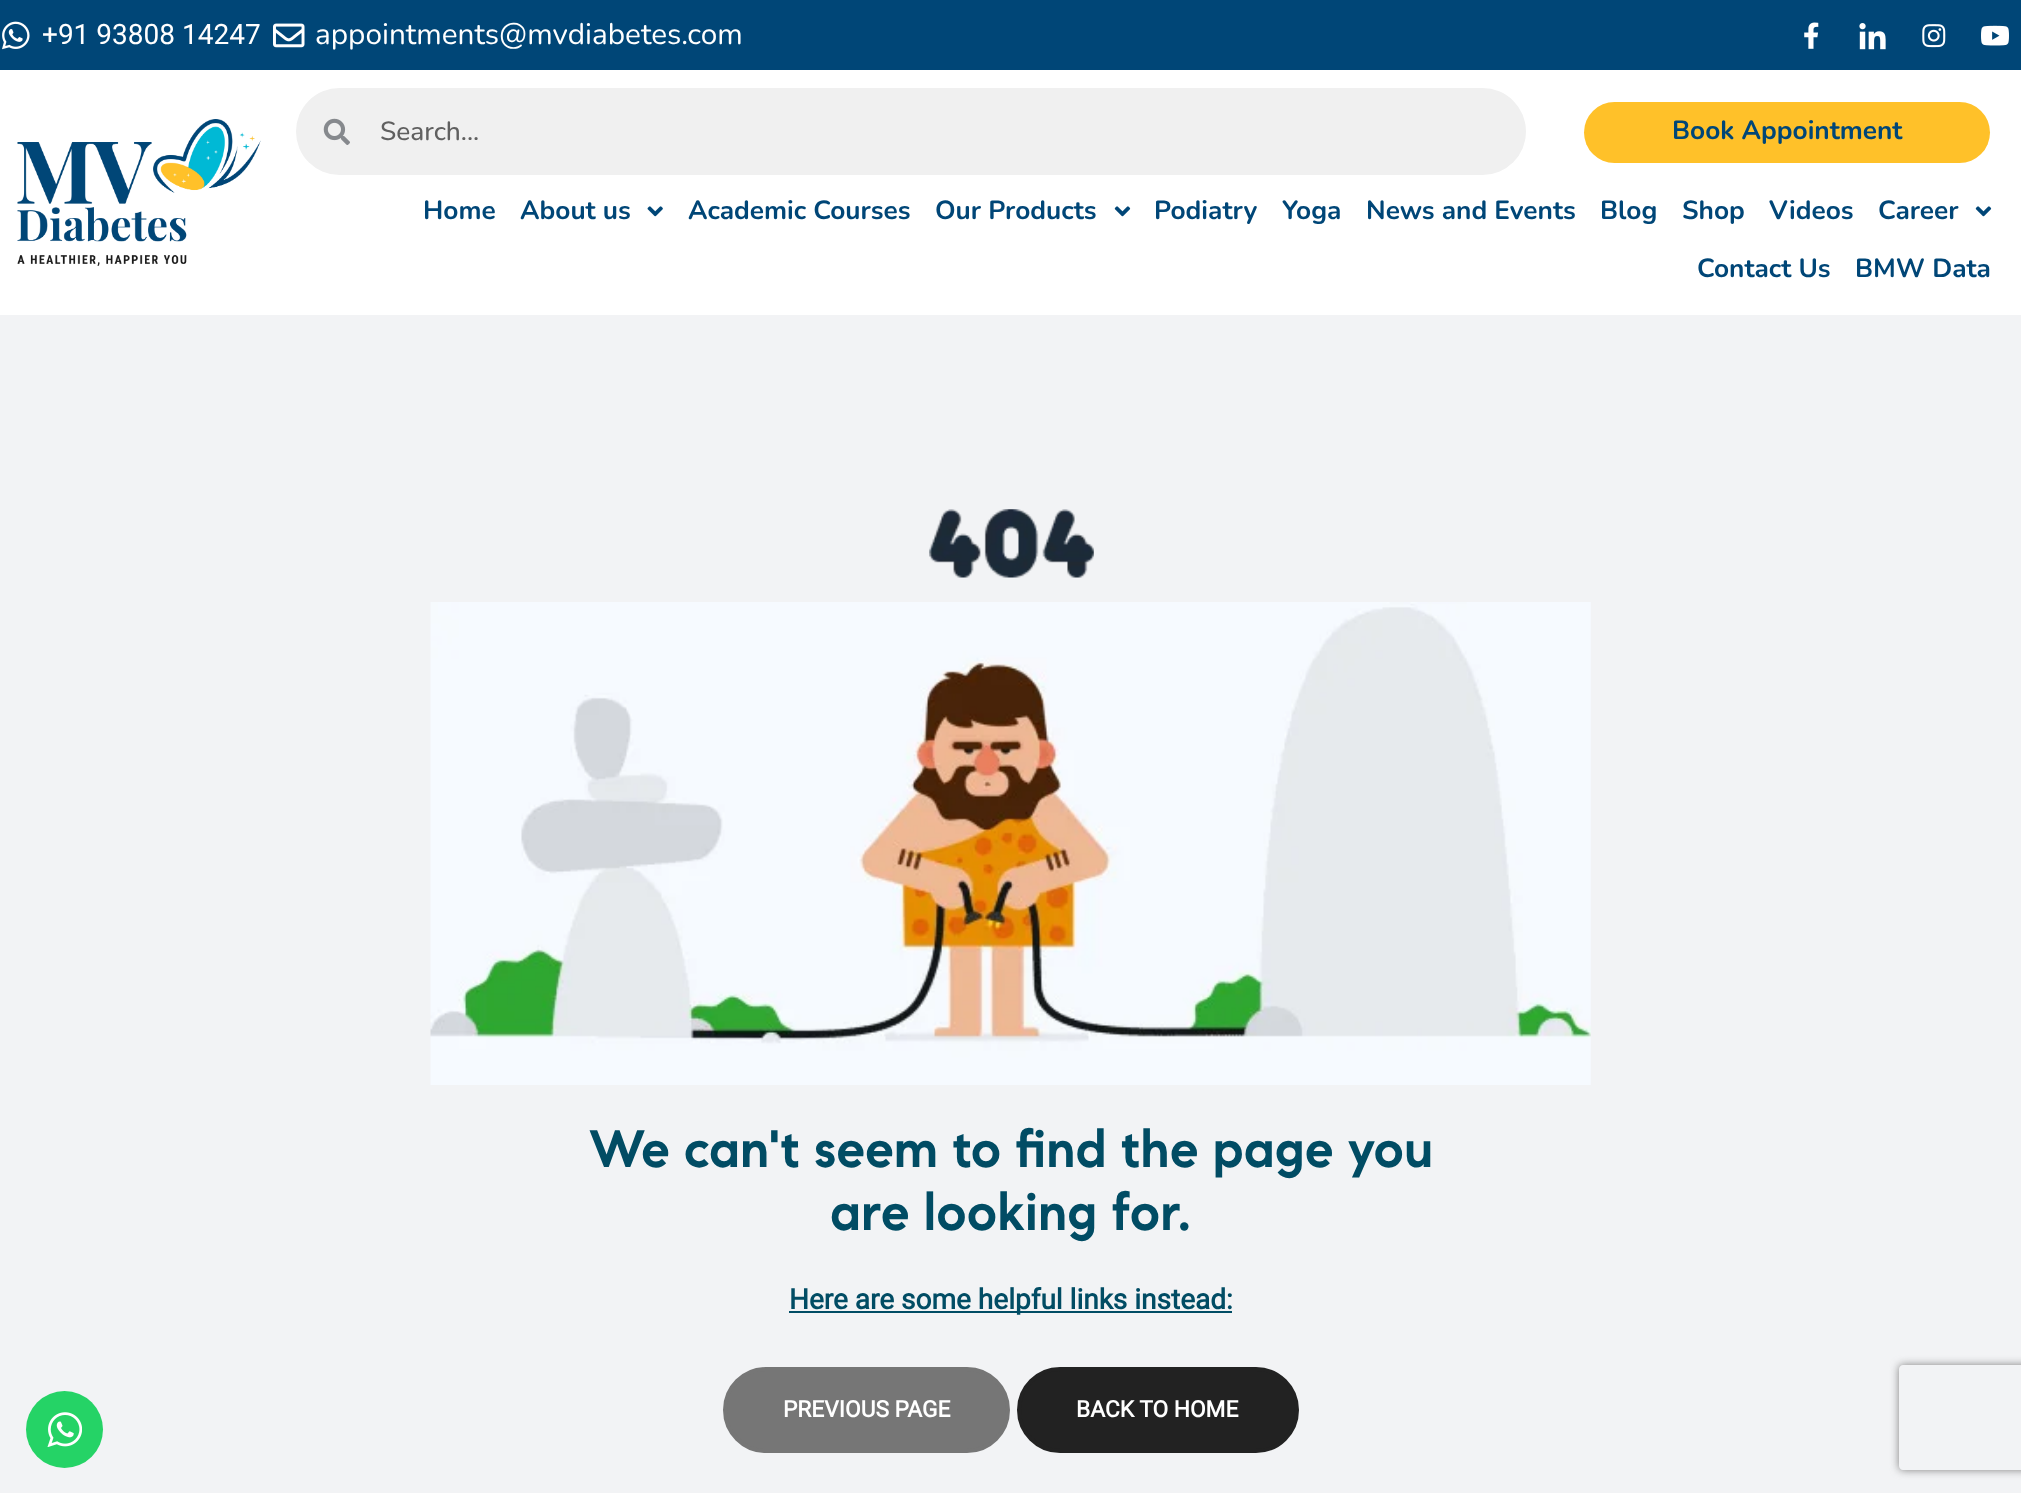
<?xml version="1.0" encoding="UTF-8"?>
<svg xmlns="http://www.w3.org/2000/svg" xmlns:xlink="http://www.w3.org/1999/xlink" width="2021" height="1493">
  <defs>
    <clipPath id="clip1"><path d="M 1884 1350 h 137 v 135 h -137 z m 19 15 h 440 c 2 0 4 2 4 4 v 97 c 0 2 -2 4 -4 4 h -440 c -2 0 -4 -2 -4 -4 v -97 c 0 -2 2 -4 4 -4 z" clip-rule="evenodd" /></clipPath>
  </defs>
  <rect width="100%" height="100%" fill="#f2f3f5" />
  <rect width="2021" height="70" fill="#004677" />
  <image x="2" y="21" width="28" height="29" xlink:href="image1.png" />
  <image x="273" y="23" width="32" height="25" xlink:href="image2.png" />
  <image x="1804" y="22" width="15" height="27" xlink:href="image3.png" />
  <image x="1859" y="23" width="27" height="27" xlink:href="image4.png" />
  <image x="1922" y="24" width="24" height="24" xlink:href="image5.png" />
  <image x="1981" y="25" width="28" height="21" xlink:href="image6.png" />
  <rect y="70" width="2021" height="245" fill="#ffffff" />
  <image x="17" y="119" width="244" height="147" xlink:href="image7.png" />
  <rect x="296" y="88" width="1230" height="87" rx="43.5" fill="#f0f0f0" />
  <image x="323" y="118" width="27" height="27" xlink:href="image8.png" />
  <rect x="1584" y="102" width="406" height="61" rx="30.5" fill="#ffc129" />
  <image x="647" y="206" width="16" height="11" xlink:href="image9.png" />
  <image x="1114" y="206" width="17" height="11" xlink:href="image10.png" />
  <image x="1975" y="206" width="17" height="11" xlink:href="image10.png" />
  <image x="929" y="509" width="165" height="69" xlink:href="image11.png" />
  <image x="430" y="602" width="1161" height="483" xlink:href="image12.png" />
  <rect x="789" y="1311" width="443" height="2" fill="#014c64" />
  <rect x="725" y="1369" width="283" height="82" rx="41" fill="#767676" stroke="#767676" stroke-width="4" />
  <rect x="1019" y="1369" width="278" height="82" rx="41" fill="#222222" stroke="#222222" stroke-width="4" />
  <circle cx="64.5" cy="1429.5" r="38.5" fill="#25d366" />
  <image x="47" y="1412" width="35" height="35" xlink:href="image13.png" />
  <g clip-path="url(#clip1)">
    <rect x="1899" y="1365" width="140" height="105" rx="4" fill="#808080" filter="blur(4.5px)" />
  </g>
  <text x="42" y="44" style="font-family: Roboto; font-size: 28px; fill: #ffffff">+91 93808 14247</text>
  <text x="315" y="44" style="font-family: Nunito; font-size: 29.75px; fill: #ffffff">appointments@mvdiabetes.com</text>
  <text x="380" y="140" style="font-family: Nunito; font-size: 26.25px; font-weight: 500; fill: #606060">Search...</text>
  <text x="1672" y="139" style="font-family: Nunito; font-size: 26.25px; font-weight: bold; fill: #004677">Book Appointment</text>
  <text x="423" y="219" style="font-family: Nunito; font-size: 26.25px; font-weight: bold; fill: #004677">Home</text>
  <text x="520" y="219" style="font-family: Nunito; font-size: 26.25px; font-weight: bold; fill: #004677">About us</text>
  <text x="688" y="219" style="font-family: Nunito; font-size: 26.25px; font-weight: bold; fill: #004677">Academic Courses</text>
  <text x="935" y="219" style="font-family: Nunito; font-size: 26.25px; font-weight: bold; fill: #004677">Our Products</text>
  <text x="1154" y="219" style="font-family: Nunito; font-size: 26.25px; font-weight: bold; fill: #004677">Podiatry</text>
  <text x="1282" y="219" style="font-family: Nunito; font-size: 26.25px; font-weight: bold; fill: #004677">Yoga</text>
  <text x="1366" y="219" style="font-family: Nunito; font-size: 26.25px; font-weight: bold; fill: #004677">News and Events</text>
  <text x="1600" y="219" style="font-family: Nunito; font-size: 26.25px; font-weight: bold; fill: #004677">Blog</text>
  <text x="1682" y="219" style="font-family: Nunito; font-size: 26.25px; font-weight: bold; fill: #004677">Shop</text>
  <text x="1769" y="219" style="font-family: Nunito; font-size: 26.25px; font-weight: bold; fill: #004677">Videos</text>
  <text x="1878" y="219" style="font-family: Nunito; font-size: 26.25px; font-weight: bold; fill: #004677">Career</text>
  <text x="1697" y="277" style="font-family: Nunito; font-size: 26.25px; font-weight: bold; fill: #004677">Contact Us</text>
  <text x="1855" y="277" style="font-family: Nunito; font-size: 26.25px; font-weight: bold; fill: #004677">BMW Data</text>
  <text x="589" y="1167" style="font-family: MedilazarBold; font-size: 52.5px; font-weight: bold; fill: #014c64">We can't seem to find the page you</text>
  <text x="830" y="1230" style="font-family: MedilazarBold; font-size: 52.5px; font-weight: bold; fill: #014c64">are looking for.</text>
  <text x="789" y="1309" style="font-family: Roboto; font-size: 28px; font-weight: bold; fill: #014c64">Here are some helpful links instead:</text>
  <text x="783" y="1417" style="font-family: Roboto; font-size: 22.75px; font-weight: bold; fill: #ffffff">PREVIOUS PAGE</text>
  <text x="1076" y="1417" style="font-family: Roboto; font-size: 22.75px; font-weight: bold; fill: #ffffff">BACK TO HOME</text>
</svg>
